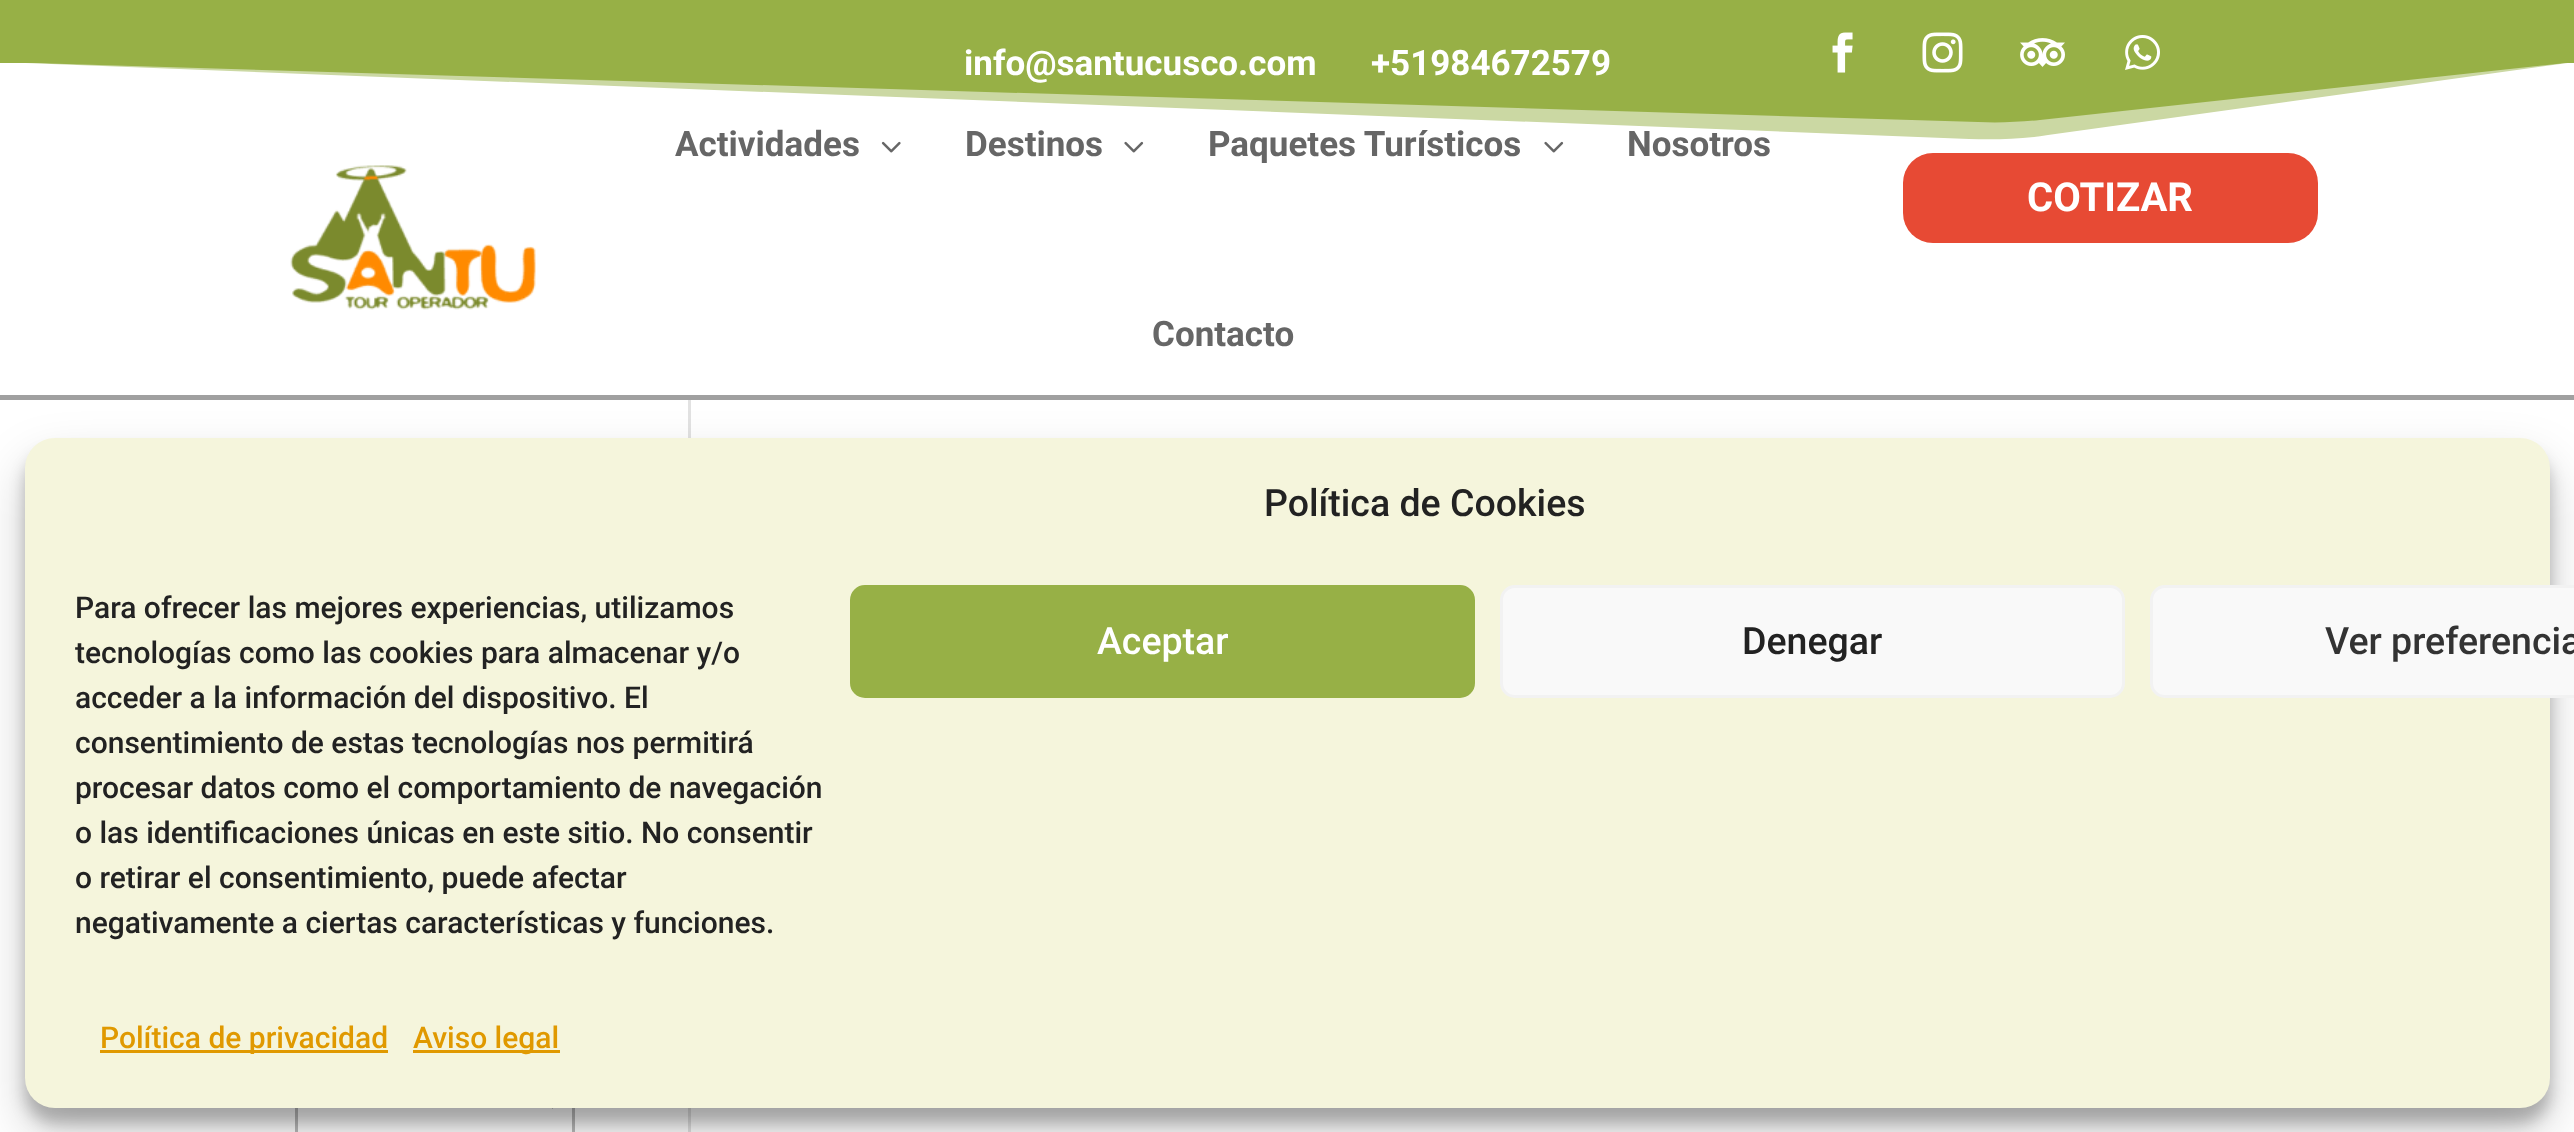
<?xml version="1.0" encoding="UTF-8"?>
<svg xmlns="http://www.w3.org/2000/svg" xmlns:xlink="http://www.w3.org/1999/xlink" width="2574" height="1132">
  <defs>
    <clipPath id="clip1"><rect y="63" width="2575" height="87" /></clipPath>
  </defs>
  <rect width="100%" height="100%" fill="#ffffff" />
  <rect width="2574" height="123" fill="#97b046" />
  <g clip-path="url(#clip1)">
    <path d="M 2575 62 l -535 58 c -20 2 -41 3 -62 2 l -1978 -60 v 88 h 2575 z" fill="#cbd8a3" />
    <path d="M 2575 62 l -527 73 c -25 4 -52 5 -79 4 l -1969 -77 v 88 h 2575 z" fill="#ffffff" />
  </g>
  <image x="1832" y="32" width="21" height="41" xlink:href="image1.png" />
  <image x="1922" y="32" width="41" height="41" xlink:href="image2.png" />
  <image x="2020" y="38" width="45" height="29" xlink:href="image3.png" />
  <image x="2125" y="35" width="35" height="35" xlink:href="image4.png" />
  <rect y="395" width="2574" height="5" fill="#a0a0a0" />
  <image x="290" y="165" width="246" height="145" xlink:href="image5.png" />
  <image x="881" y="141" width="20" height="12" xlink:href="image6.png" />
  <image x="1124" y="141" width="20" height="12" xlink:href="image7.png" />
  <image x="1544" y="141" width="20" height="12" xlink:href="image7.png" />
  <rect x="1903" y="153" width="415" height="90" rx="30" fill="#e74a34" />
  <rect x="296.5" y="1066.5" width="277" height="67" fill="none" stroke="#bbbbbb" stroke-width="3" />
  <path d="M 542.5 1095 l 10 10 l 10 -10" fill="none" stroke="#4e4e4e" stroke-width="5" />
  <rect x="688" y="400" width="3" height="732" fill="#e2e2e2" />
  <rect x="25" y="453" width="2525" height="670" rx="30" fill="#000000" fill-opacity="0.23" filter="blur(7.5px)" />
  <rect x="25" y="463" width="2525" height="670" rx="30" fill="#000000" fill-opacity="0.19" filter="blur(25px)" />
  <rect x="25" y="438" width="2525" height="670" rx="30" fill="#f5f5dc" />
  <rect x="851.5" y="586.5" width="622" height="110" rx="13.5" fill="#97b046" stroke="#97b046" stroke-width="3" />
  <rect x="1501.5" y="586.5" width="622" height="110" rx="13.5" fill="#f9f9f9" stroke="#f2f2f2" stroke-width="3" />
  <rect x="2151.5" y="586.5" width="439" height="110" rx="13.5" fill="#f9f9f9" stroke="#f2f2f2" stroke-width="3" />
  <rect x="100" y="1050" width="288" height="3" fill="#e09900" />
  <rect x="413" y="1050" width="147" height="3" fill="#e09900" />
  <text x="964" y="75" style="font-family: Roboto; font-size: 35px; font-weight: bold; fill: #ffffff">info@santucusco.com</text>
  <text x="1371" y="75" style="font-family: Roboto; font-size: 35px; font-weight: bold; fill: #ffffff">+51984672579</text>
  <text x="675" y="156" style="font-family: Roboto; font-size: 35px; font-weight: bold; fill: #666666">Actividades</text>
  <text x="965" y="156" style="font-family: Roboto; font-size: 35px; font-weight: bold; fill: #666666">Destinos</text>
  <text x="1208" y="156" style="font-family: Roboto; font-size: 35px; font-weight: bold; fill: #666666">Paquetes Turísticos</text>
  <text x="1627" y="156" style="font-family: Roboto; font-size: 35px; font-weight: bold; fill: #666666">Nosotros</text>
  <text x="1152" y="346" style="font-family: Roboto; font-size: 35px; font-weight: bold; fill: #666666">Contacto</text>
  <text x="2027" y="211" style="font-family: Roboto; font-size: 40px; font-weight: bold; fill: #ffffff">COTIZAR</text>
  <text x="1264" y="516" style="font-family: Roboto; font-size: 37.5px; font-weight: 500; fill: #222222">Política de Cookies</text>
  <text x="75" y="618" style="font-family: Roboto; font-size: 30px; font-weight: 500; fill: #222222">Para ofrecer las mejores experiencias, utilizamos</text>
  <text x="75" y="663" style="font-family: Roboto; font-size: 30px; font-weight: 500; fill: #222222">tecnologías como las cookies para almacenar y/o</text>
  <text x="75" y="708" style="font-family: Roboto; font-size: 30px; font-weight: 500; fill: #222222">acceder a la información del dispositivo. El</text>
  <text x="75" y="753" style="font-family: Roboto; font-size: 30px; font-weight: 500; fill: #222222">consentimiento de estas tecnologías nos permitirá</text>
  <text x="75" y="798" style="font-family: Roboto; font-size: 30px; font-weight: 500; fill: #222222">procesar datos como el comportamiento de navegación</text>
  <text x="75" y="843" style="font-family: Roboto; font-size: 30px; font-weight: 500; fill: #222222">o las identificaciones únicas en este sitio. No consentir</text>
  <text x="75" y="888" style="font-family: Roboto; font-size: 30px; font-weight: 500; fill: #222222">o retirar el consentimiento, puede afectar</text>
  <text x="75" y="933" style="font-family: Roboto; font-size: 30px; font-weight: 500; fill: #222222">negativamente a ciertas características y funciones.</text>
  <text x="1097" y="654" style="font-family: Roboto; font-size: 37.5px; font-weight: 500; fill: #ffffff">Aceptar</text>
  <text x="1742" y="654" style="font-family: Roboto; font-size: 37.5px; font-weight: 500; fill: #222222">Denegar</text>
  <text x="2325" y="654" style="font-family: Roboto; font-size: 37.5px; font-weight: 500; fill: #333333">Ver preferencia</text>
  <text x="100" y="1048" style="font-family: Roboto; font-size: 30px; font-weight: 500; fill: #e09900">Política de privacidad</text>
  <text x="413" y="1048" style="font-family: Roboto; font-size: 30px; font-weight: 500; fill: #e09900">Aviso legal</text>
</svg>
